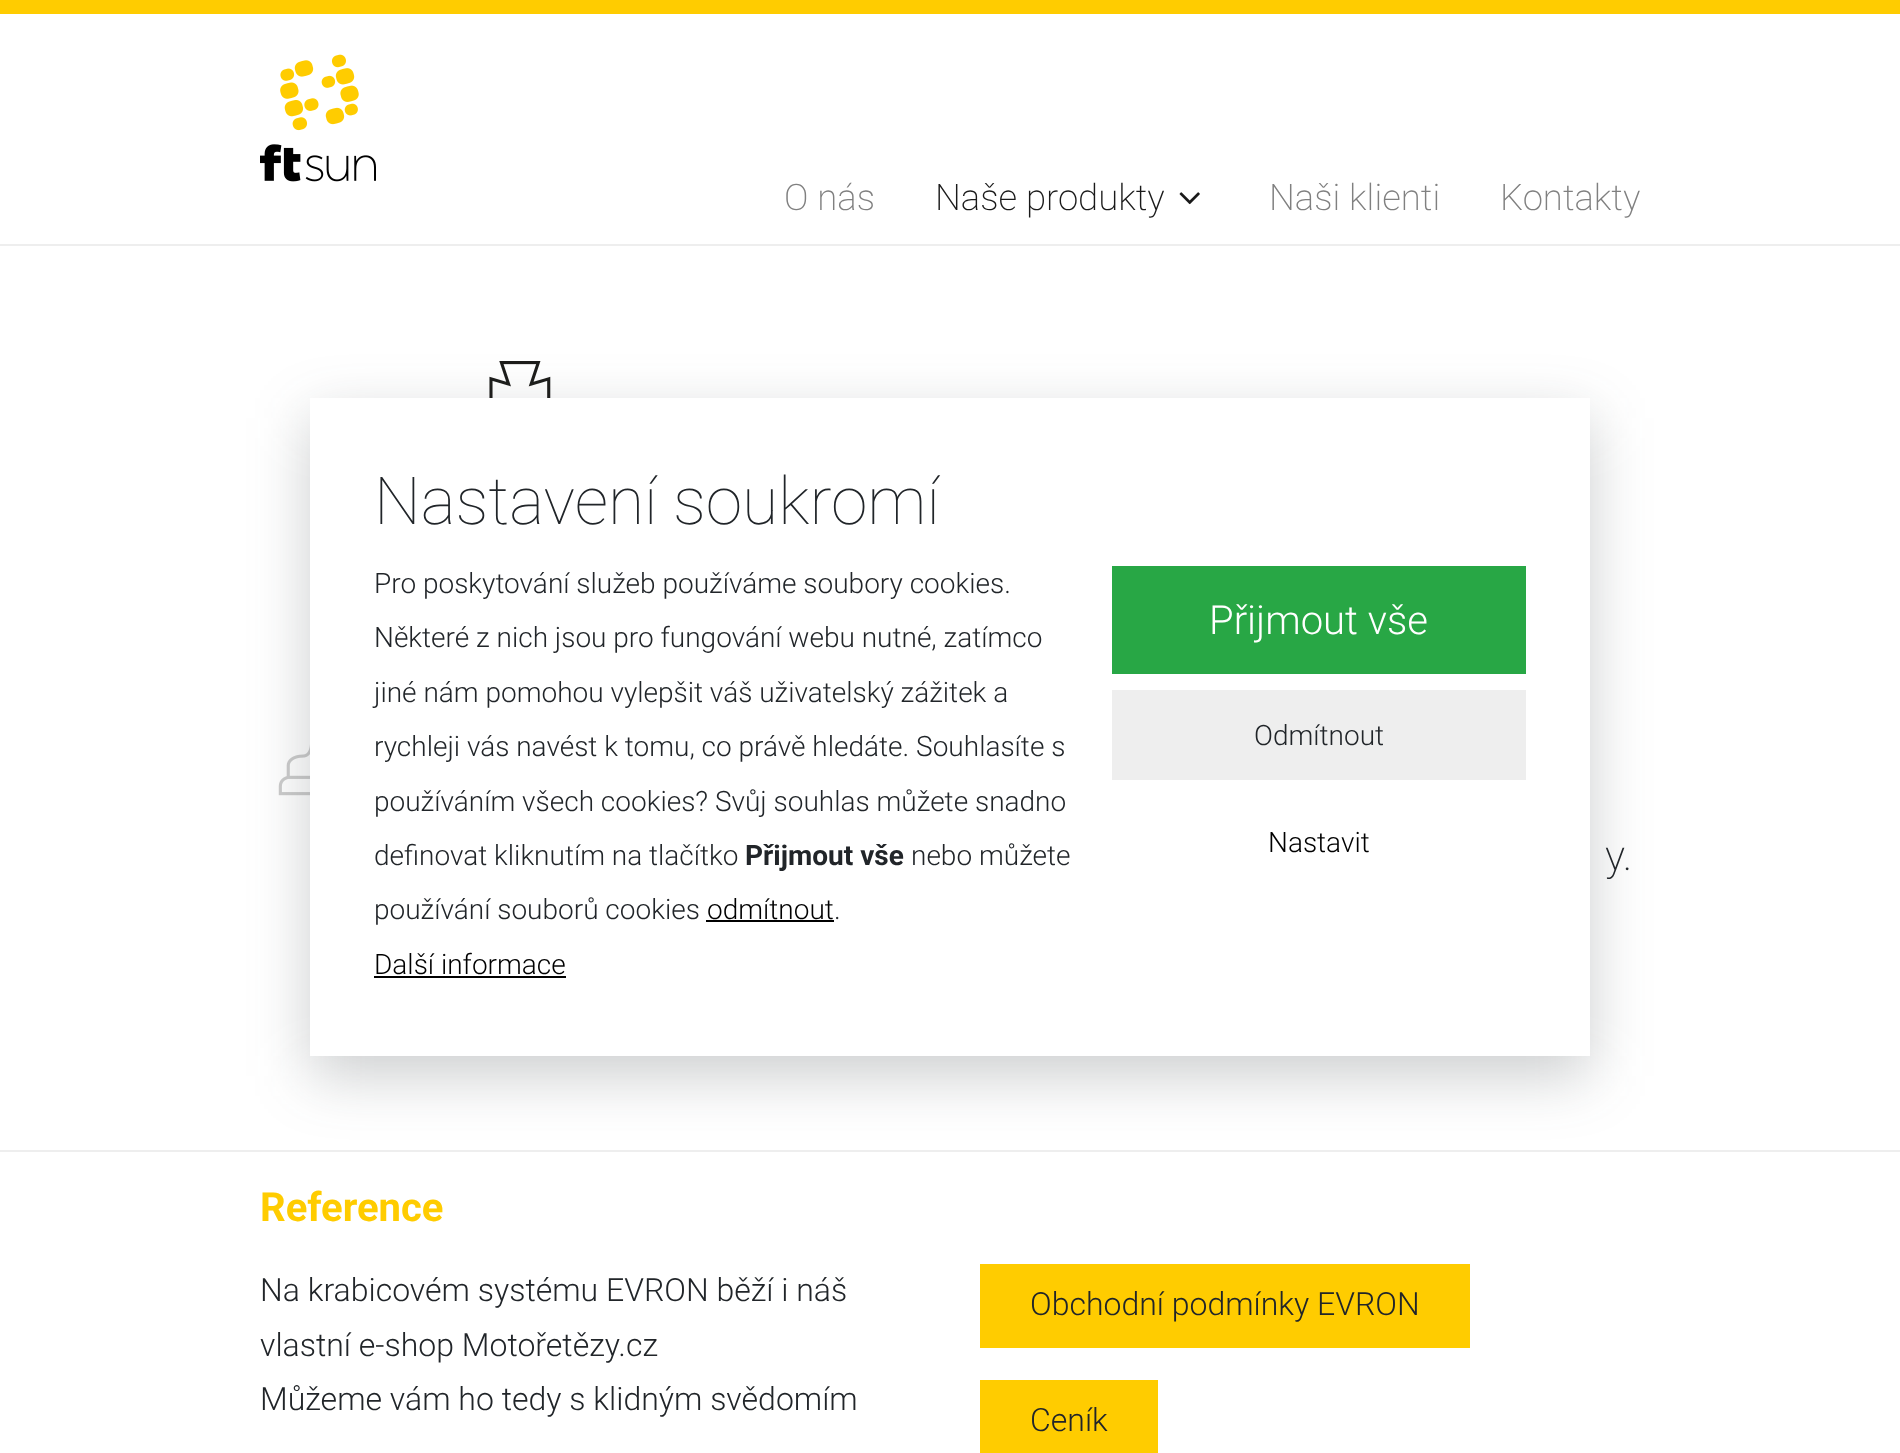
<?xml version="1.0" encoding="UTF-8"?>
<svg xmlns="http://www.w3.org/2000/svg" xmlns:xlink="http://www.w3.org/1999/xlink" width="1900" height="1453">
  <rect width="100%" height="100%" fill="#ffffff" />
  <rect width="1900" height="14" fill="#ffcc00" />
  <rect y="244" width="1900" height="2" fill="#eeeeee" />
  <image x="260" y="54" width="116" height="128" xlink:href="image1.png" />
  <image x="1179" y="192" width="21" height="13" xlink:href="image2.png" />
  <image x="278" y="361" width="273" height="435" xlink:href="image3.png" />
  <rect y="1150" width="1900" height="2" fill="#eeeeee" />
  <rect x="310" y="418" width="1280" height="658" fill="#343a40" fill-opacity="0.25" filter="blur(30px)" />
  <rect x="310" y="398" width="1280" height="658" fill="#ffffff" />
  <rect x="706" y="920" width="128" height="2" fill="#000000" />
  <rect x="374" y="976" width="192" height="2" fill="#000000" />
  <rect x="1112" y="566" width="414" height="108" fill="#28a745" />
  <rect x="1112" y="690" width="414" height="90" fill="#eeeeee" />
  <rect x="980" y="1264" width="490" height="84" fill="#ffcc00" />
  <rect x="980" y="1380" width="178" height="73" fill="#ffcc00" />
  <text x="784" y="210" style="font-family: Roboto; font-size: 36.5px; font-weight: 200; fill: #808080">O nás</text>
  <text x="935" y="210" style="font-family: Roboto; font-size: 36.5px; font-weight: 200; fill: #1a1a1a">Naše produkty</text>
  <text x="1269" y="210" style="font-family: Roboto; font-size: 36.5px; font-weight: 200; fill: #808080">Naši klienti</text>
  <text x="1500" y="210" style="font-family: Roboto; font-size: 36.5px; font-weight: 200; fill: #808080">Kontakty</text>
  <text x="374" y="524" style="font-family: Roboto; font-size: 66px; font-weight: 100; fill: #212529">Nastavení soukromí</text>
  <text x="374" y="593" style="font-family: Roboto; font-size: 28px; font-weight: 300; fill: #212529">Pro poskytování služeb používáme soubory cookies.</text>
  <text x="374" y="647" style="font-family: Roboto; font-size: 28px; font-weight: 300; fill: #212529">Některé z nich jsou pro fungování webu nutné, zatímco</text>
  <text x="374" y="702" style="font-family: Roboto; font-size: 28px; font-weight: 300; fill: #212529">jiné nám pomohou vylepšit váš uživatelský zážitek a</text>
  <text x="374" y="756" style="font-family: Roboto; font-size: 28px; font-weight: 300; fill: #212529">rychleji vás navést k tomu, co právě hledáte. Souhlasíte s</text>
  <text x="374" y="811" style="font-family: Roboto; font-size: 28px; font-weight: 300; fill: #212529">používáním všech cookies? Svůj souhlas můžete snadno</text>
  <text x="374" y="865" style="font-family: Roboto; font-size: 28px; font-weight: 300; fill: #212529">definovat kliknutím na tlačítko</text>
  <text x="745" y="865" style="font-family: Roboto; font-size: 28px; font-weight: bold; fill: #212529">Přijmout vše</text>
  <text x="911" y="865" style="font-family: Roboto; font-size: 28px; font-weight: 300; fill: #212529">nebo můžete</text>
  <text x="374" y="919" style="font-family: Roboto; font-size: 28px; font-weight: 300; fill: #212529">používání souborů cookies</text>
  <text x="707" y="919" style="font-family: Roboto; font-size: 28px; font-weight: 300; fill: #000000">odmítnout</text>
  <text x="834" y="919" style="font-family: Roboto; font-size: 28px; font-weight: 300; fill: #212529">.</text>
  <text x="374" y="974" style="font-family: Roboto; font-size: 28px; font-weight: 300; fill: #000000">Další informace</text>
  <text x="1209" y="634" style="font-family: Roboto; font-size: 40px; font-weight: 300; fill: #ffffff">Přijmout vše</text>
  <text x="1254" y="745" style="font-family: Roboto; font-size: 28px; font-weight: 300; fill: #212529">Odmítnout</text>
  <text x="1268" y="852" style="font-family: Roboto; font-size: 28px; font-weight: 300; fill: #000000">Nastavit</text>
  <text x="1605" y="870" style="font-family: Roboto; font-size: 42px; font-weight: 200; fill: #212529">y.</text>
  <text x="260" y="1221" style="font-family: Roboto; font-size: 40px; font-weight: bold; fill: #ffcc00">Reference</text>
  <text x="260" y="1301" style="font-family: Roboto; font-size: 32px; font-weight: 300; fill: #212529">Na krabicovém systému EVRON běží i náš</text>
  <text x="260" y="1356" style="font-family: Roboto; font-size: 32px; font-weight: 300; fill: #212529">vlastní e-shop Motořetězy.cz</text>
  <text x="260" y="1410" style="font-family: Roboto; font-size: 32px; font-weight: 300; fill: #212529">Můžeme vám ho tedy s klidným svědomím</text>
  <text x="1030" y="1315" style="font-family: Roboto; font-size: 32px; font-weight: 300; fill: #212529">Obchodní podmínky EVRON</text>
  <text x="1030" y="1431" style="font-family: Roboto; font-size: 32px; font-weight: 300; fill: #212529">Ceník</text>
</svg>
